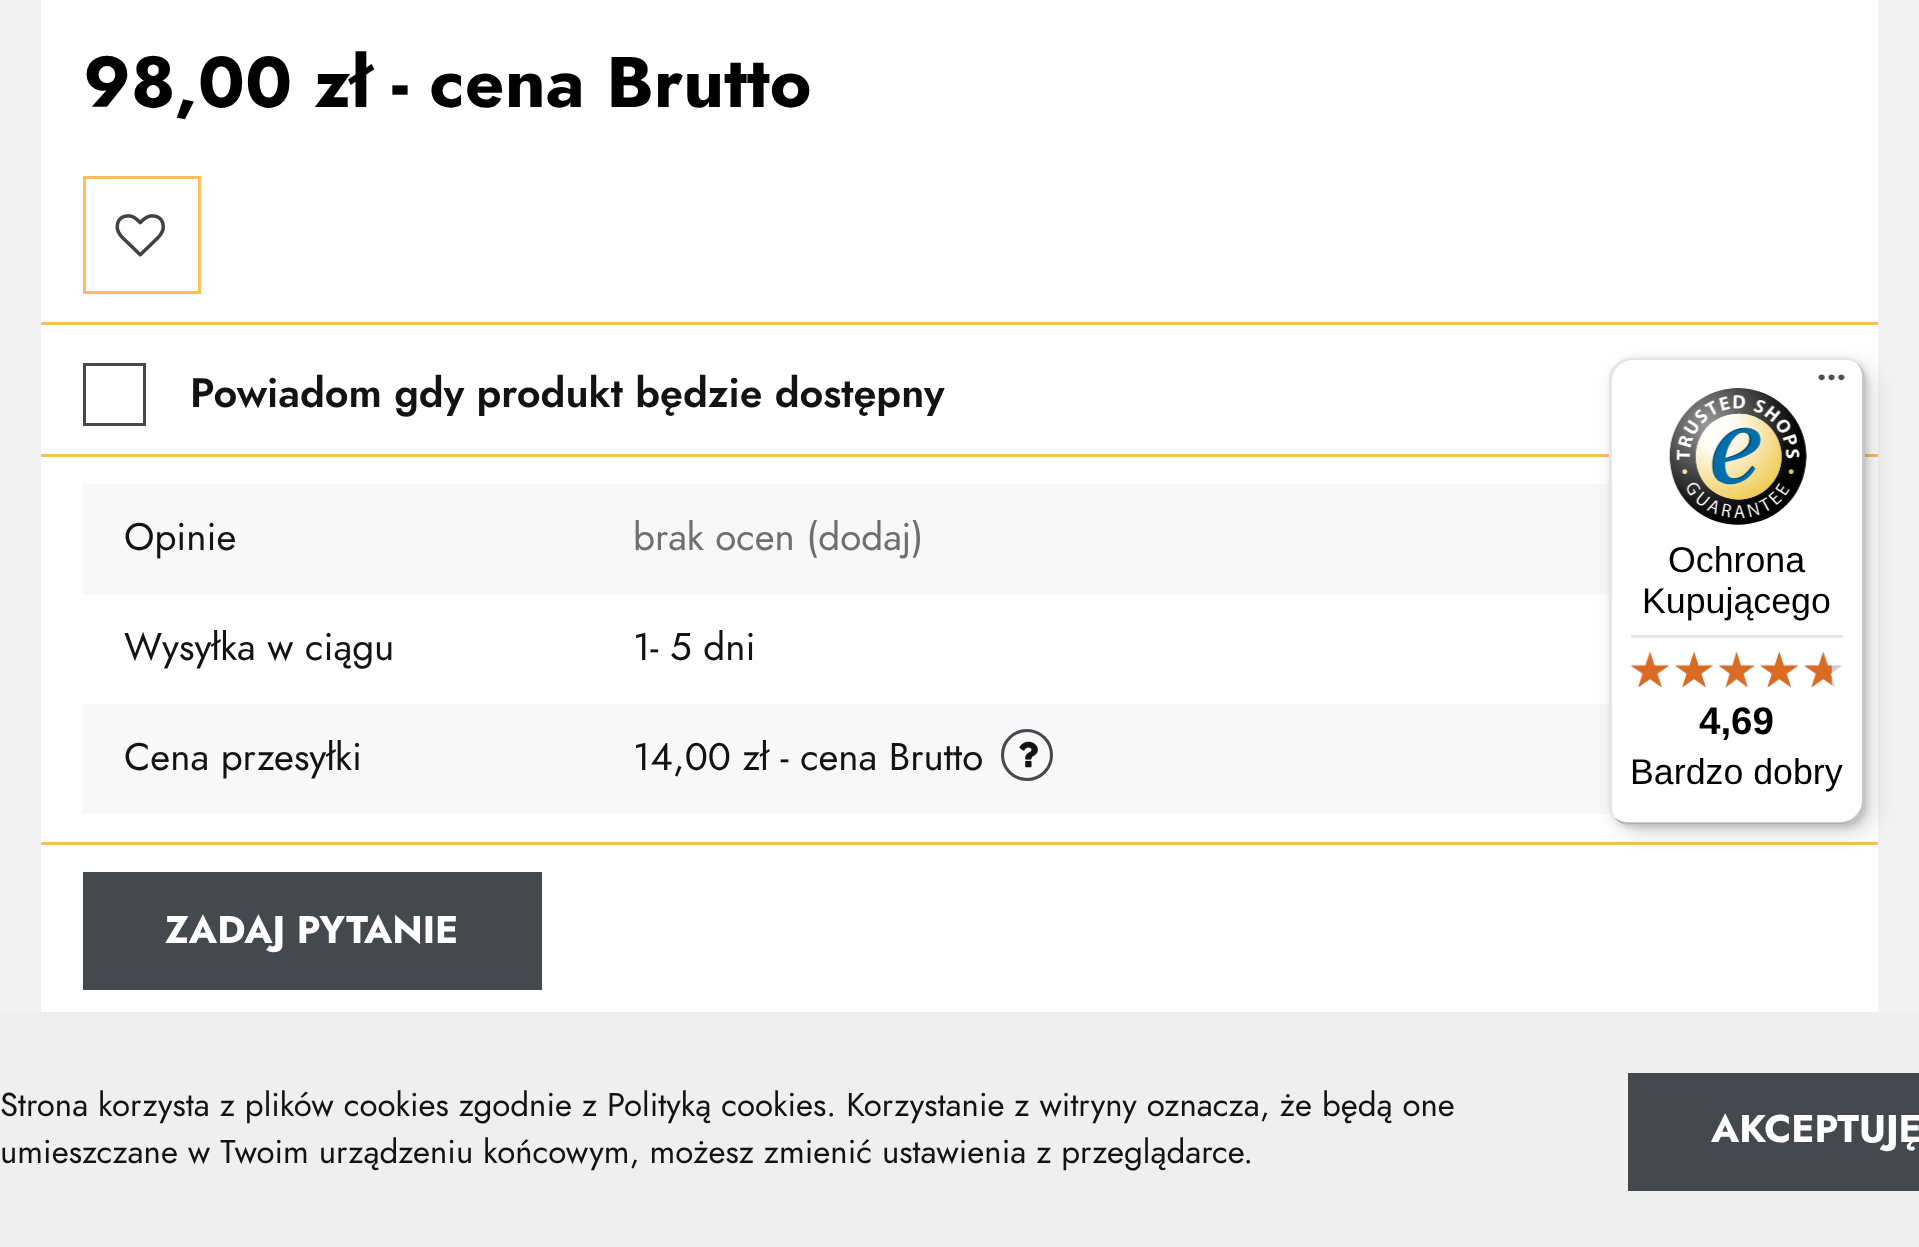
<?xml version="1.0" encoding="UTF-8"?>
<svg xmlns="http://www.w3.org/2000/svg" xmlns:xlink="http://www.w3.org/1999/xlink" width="1919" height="1247">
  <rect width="100%" height="100%" fill="#f2f2f2" />
  <rect x="41" width="1837" height="1012" fill="#ffffff" />
  <rect x="41" y="322" width="1837" height="3" fill="#fcc056" />
  <rect x="84.5" y="177.5" width="115" height="115" fill="none" stroke="#fcc056" stroke-width="3" />
  <image x="115" y="214" width="50" height="43" xlink:href="image1.png" />
  <rect x="41" y="454" width="1837" height="3" fill="#fcc056" />
  <rect x="84.5" y="364.5" width="60" height="60" fill="none" stroke="#45494e" stroke-width="3" />
  <rect x="41" y="842" width="1837" height="3" fill="#fcc056" />
  <rect x="83" y="484" width="1526" height="110" fill="#f8f8f8" />
  <rect x="83" y="704" width="1529" height="110" fill="#f8f8f8" />
  <circle cx="1027" cy="755" r="24.5" fill="none" stroke="#45494e" stroke-width="3" />
  <image x="1019" y="741" width="19" height="27" xlink:href="image2.png" />
  <rect x="83" y="872" width="459" height="118" fill="#45494e" />
  <rect x="1617" y="366" width="256" height="467" rx="22" fill="#000000" fill-opacity="0.15" filter="blur(11px)" />
  <rect x="1612" y="360" width="255" height="468" rx="22" fill="#000000" fill-opacity="0.15" filter="blur(3px)" />
  <rect x="1609" y="358" width="256" height="467" rx="22" fill="#ffffff" />
  <path d="M 1634 360 h 211 c 6 0 11 2 15 6 c -4 -5 -10 -8 -17 -8 h -212 c -12 0 -22 10 -22 22 v 423 c 0 7 3 12 7 16 c -2 -3 -4 -8 -4 -13 v -424 c 0 -12 9 -22 22 -22 z" fill="#000000" fill-opacity="0.1" />
  <path d="M 1614 817 c 4 5 10 8 17 8 h 212 c 12 0 22 -10 22 -22 v -423 c 0 -7 -3 -13 -8 -17 c 3 4 5 9 5 14 v 423 c 0 12 -10 22 -22 22 h -212 c -5 0 -10 -2 -14 -5 z" fill="#000000" fill-opacity="0.2" />
  <path d="M 1615 818 c 4 5 10 7 16 7 h 212 c 12 0 22 -10 22 -22 v -423 c 0 -7 -3 -13 -8 -17 c 4 4 6 9 6 15 v 423 c 0 13 -10 22 -22 22 h -212 c -5 0 -10 -2 -14 -5 z" fill="#323232" fill-opacity="0.2" />
  <path d="M 1620 822 c 3 2 7 3 11 3 h 212 c 12 0 22 -10 22 -22 v -423 c 0 -7 -3 -13 -8 -17 c 4 4 6 9 6 15 v 424 c 0 12 -10 22 -22 22 h -212 c -3 0 -6 -1 -9 -2 z" fill="#ffffff" fill-opacity="0.3" />
  <image x="1817" y="374" width="28" height="7" xlink:href="image3.png" />
  <image x="1669" y="388" width="138" height="137" xlink:href="image4.png" />
  <rect x="1631" y="635" width="212" height="3" fill="#e5e5e5" />
  <image x="1631" y="652" width="38" height="35" xlink:href="image10.png" />
  <image x="1630" y="651" width="39" height="37" xlink:href="image5.png" />
  <image x="1675" y="652" width="38" height="36" xlink:href="image11.png" />
  <image x="1675" y="651" width="38" height="37" xlink:href="image6.png" />
  <image x="1718" y="652" width="36" height="35" xlink:href="image12.png" />
  <image x="1718" y="651" width="37" height="37" xlink:href="image7.png" />
  <image x="1760" y="651" width="38" height="37" xlink:href="image13.png" />
  <image x="1760" y="651" width="38" height="37" xlink:href="image8.png" />
  <image x="1804" y="652" width="38" height="35" xlink:href="image14.png" />
  <image x="1804" y="651" width="28" height="37" xlink:href="image9.png" />
  <rect y="1012" width="1919" height="235" fill="#efefef" />
  <rect x="1628" y="1073" width="291" height="118" fill="#45494e" />
  <text x="83" y="107" style="font-family: Jost; font-size: 71.5px; font-weight: bold; fill: #000000">98,00 zł - cena Brutto</text>
  <text x="190" y="407" style="font-family: Jost; font-size: 41.25px; font-weight: 600; fill: #131313">Powiadom gdy produkt będzie dostępny</text>
  <text x="124" y="550" style="font-family: Jost; font-size: 38.5px; fill: #131313">Opinie</text>
  <text x="633" y="550" style="font-family: Jost; font-size: 38.5px; fill: #6f6f6f">brak ocen (dodaj)</text>
  <text x="124" y="660" style="font-family: Jost; font-size: 38.5px; fill: #131313">Wysyłka w ciągu</text>
  <text x="633" y="660" style="font-family: Jost; font-size: 38.5px; fill: #131313">1- 5 dni</text>
  <text x="124" y="770" style="font-family: Jost; font-size: 38.5px; fill: #131313">Cena przesyłki</text>
  <text x="633" y="770" style="font-family: Jost; font-size: 38.5px; fill: #131313">14,00 zł - cena Brutto</text>
  <text x="165" y="943" style="font-family: Jost; font-size: 38.5px; font-weight: bold; fill: #ffffff">ZADAJ PYTANIE</text>
  <text x="1668" y="572" style="font-family: Liberation Sans; font-size: 35.75px; fill: #000000">Ochrona</text>
  <text x="1642" y="613" style="font-family: Liberation Sans; font-size: 35.75px; fill: #000000">Kupującego</text>
  <text x="1699" y="734" style="font-family: Liberation Sans; font-size: 38.5px; font-weight: bold; fill: #000000">4,69</text>
  <text x="1630" y="784" style="font-family: Liberation Sans; font-size: 35.75px; fill: #000000">Bardzo dobry</text>
  <text x="0" y="1116" style="font-family: Jost; font-size: 33px; fill: #131313">Strona korzysta z plików cookies zgodnie z Polityką cookies. Korzystanie z witryny oznacza, że będą one</text>
  <text x="0" y="1163" style="font-family: Jost; font-size: 33px; fill: #131313">umieszczane w Twoim urządzeniu końcowym, możesz zmienić ustawienia z przeglądarce.</text>
  <text x="1711" y="1142" style="font-family: Jost; font-size: 38.5px; font-weight: bold; fill: #ffffff">AKCEPTUJĘ</text>
</svg>
